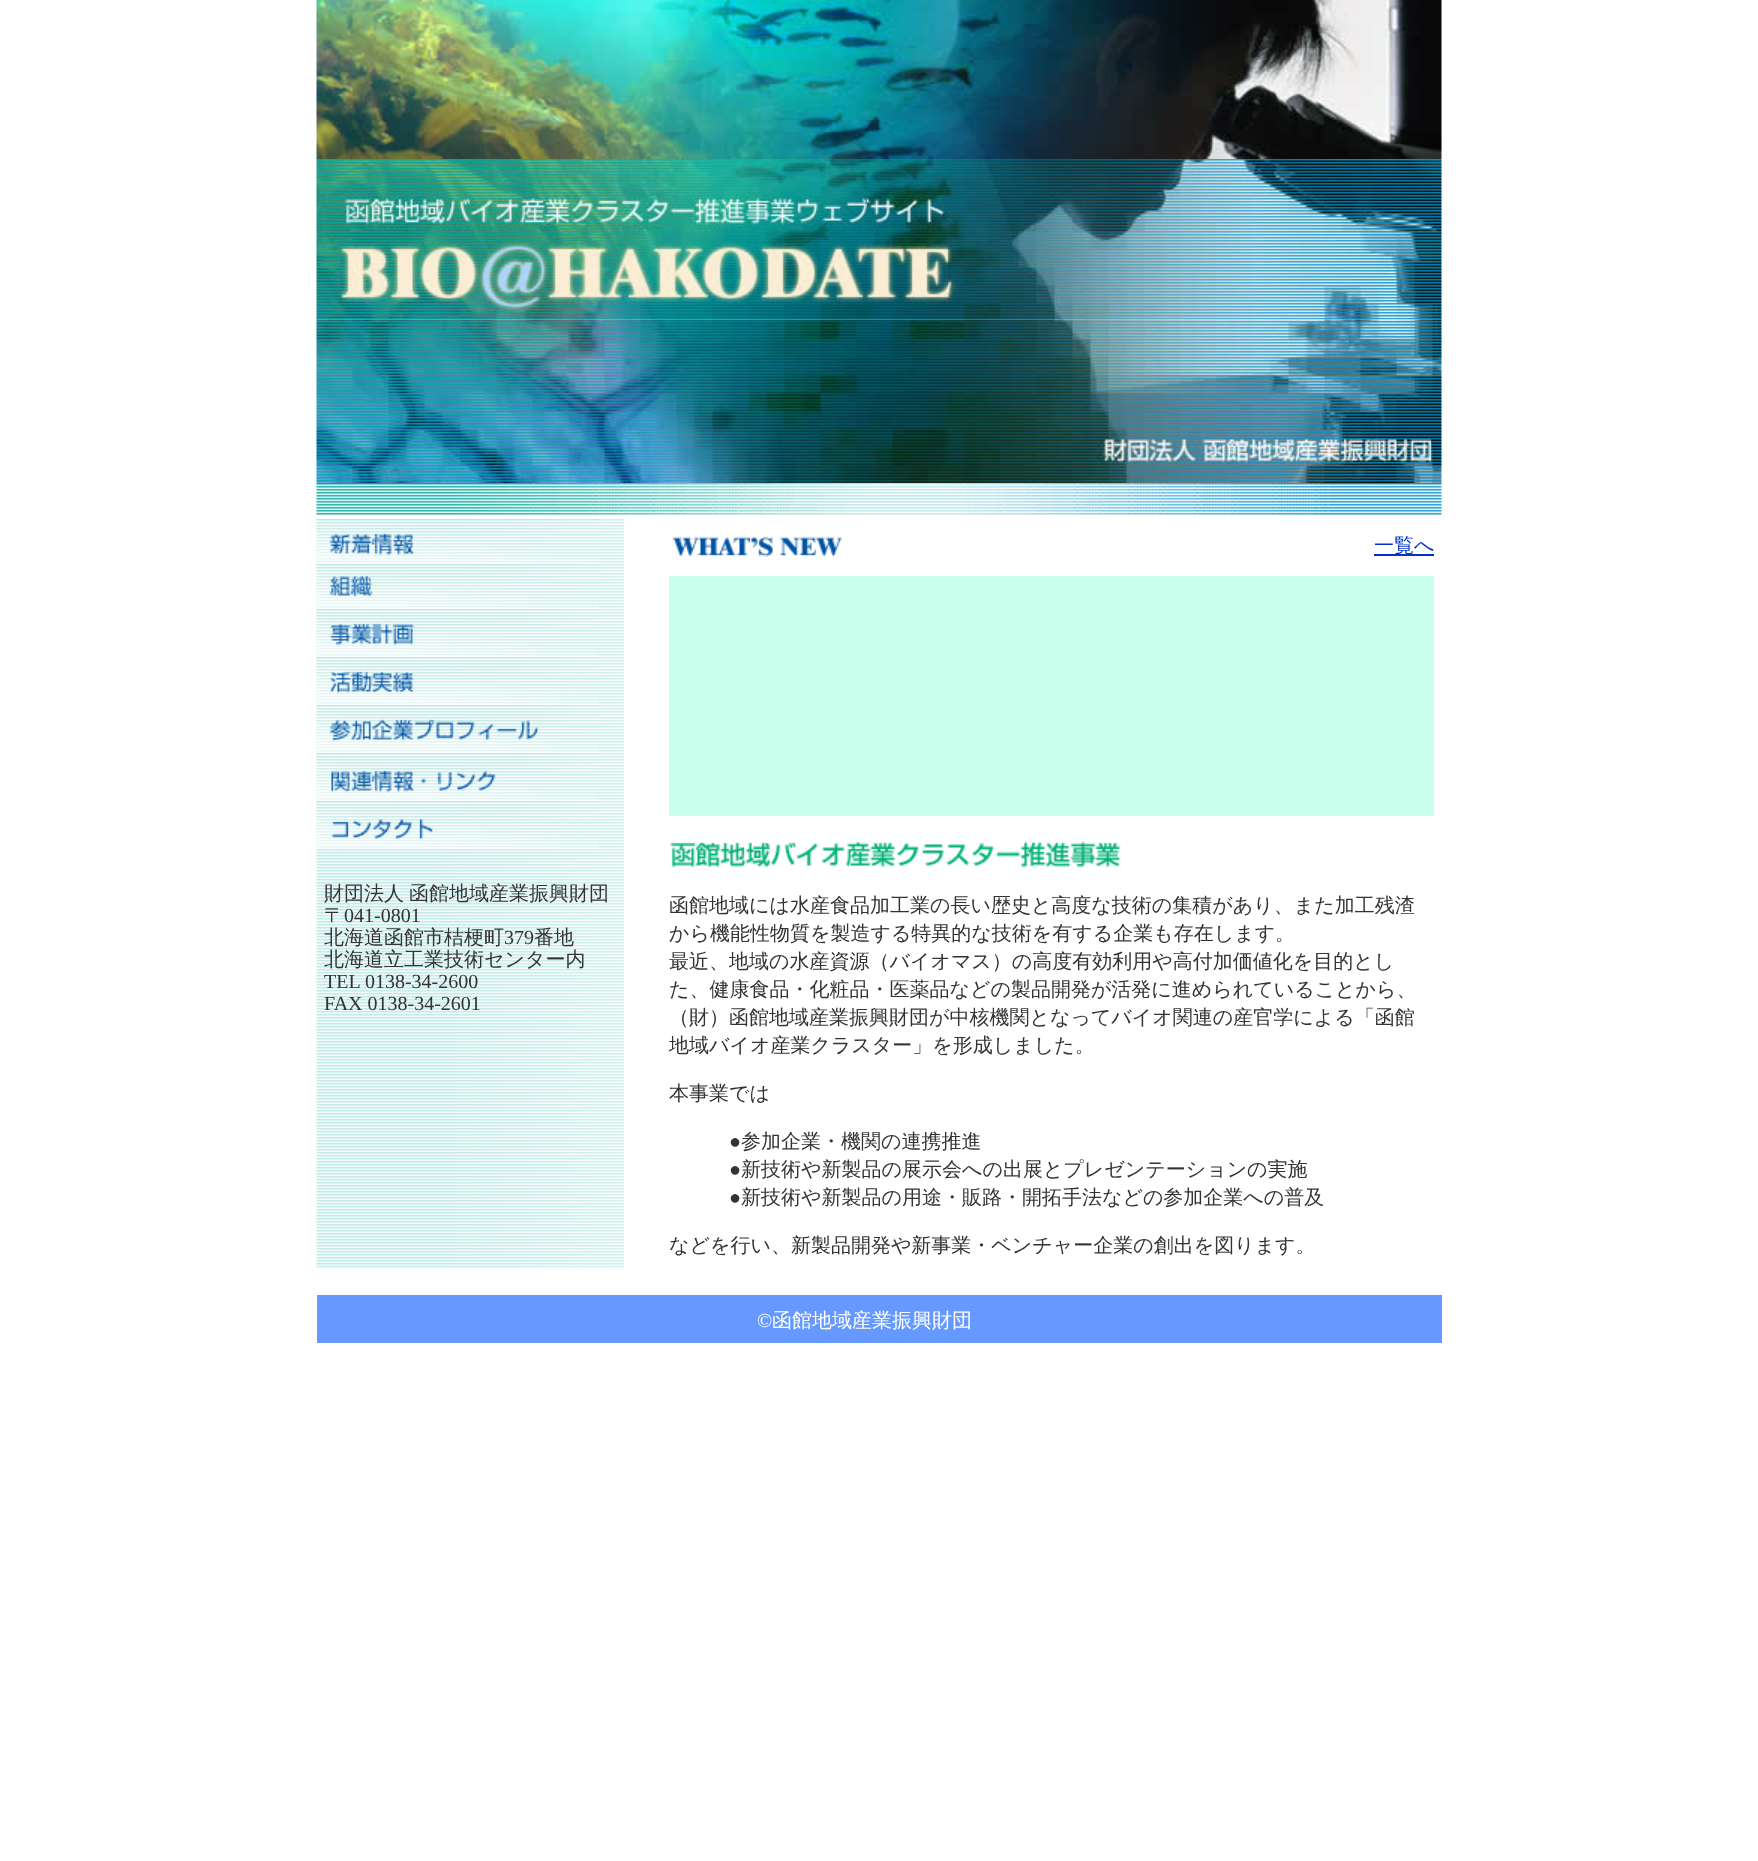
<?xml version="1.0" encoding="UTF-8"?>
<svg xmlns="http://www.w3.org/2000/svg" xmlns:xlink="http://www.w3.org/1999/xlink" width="1758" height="1861">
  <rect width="100%" height="100%" fill="#ffffff" />
  <image x="316" y="0" width="1126" height="159" xlink:href="image1.png" />
  <image x="316" y="159" width="1126" height="161" xlink:href="image2.png" />
  <image x="316" y="319" width="1126" height="164" xlink:href="image3.png" />
  <image x="316" y="483" width="1126" height="32" xlink:href="image4.png" />
  <image x="316" y="519" width="308" height="749" xlink:href="image5.png" />
  <image x="316" y="519" width="283" height="45" xlink:href="image6.png" />
  <image x="316" y="564" width="283" height="45" xlink:href="image7.png" />
  <image x="316" y="609" width="283" height="48" xlink:href="image8.png" />
  <image x="316" y="657" width="283" height="48" xlink:href="image9.png" />
  <image x="316" y="705" width="283" height="48" xlink:href="image10.png" />
  <image x="316" y="753" width="283" height="48" xlink:href="image11.png" />
  <image x="316" y="801" width="283" height="48" xlink:href="image12.png" />
  <image x="671" y="536" width="171" height="21" xlink:href="image13.png" />
  <rect x="1374" y="554" width="60" height="2" fill="#0033cc" />
  <rect x="669" y="576" width="765" height="240" fill="#c8ffed" />
  <image x="670" y="841" width="451" height="27" xlink:href="image14.png" />
  <rect x="317" y="1295" width="1125" height="48" fill="#6699ff" />
  <text x="324" y="900" word-spacing="-1" style="font-family: WenQuanYi Zen Hei; font-size: 20px; font-weight: 500; fill: #333333">財団法人 函館地域産業振興財団</text>
  <text x="324" y="922" style="font-family: WenQuanYi Zen Hei; font-size: 20px; font-weight: 500; fill: #333333">〒</text>
  <text x="344" y="922" style="font-family: Liberation Serif; font-size: 20px; fill: #333333">041-0801</text>
  <text x="324" y="944" style="font-family: WenQuanYi Zen Hei; font-size: 20px; font-weight: 500; fill: #333333">北海道函館市桔梗町</text>
  <text x="504" y="944" style="font-family: Liberation Serif; font-size: 20px; fill: #333333">379</text>
  <text x="534" y="944" style="font-family: WenQuanYi Zen Hei; font-size: 20px; font-weight: 500; fill: #333333">番地</text>
  <text x="324" y="966" style="font-family: WenQuanYi Zen Hei; font-size: 20px; font-weight: 500; fill: #333333">北海道立工業技術センター内</text>
  <text x="324" y="988" style="font-family: Liberation Serif; font-size: 20px; fill: #333333">TEL 0138-34-2600</text>
  <text x="324" y="1010" style="font-family: Liberation Serif; font-size: 20px; fill: #333333">FAX 0138-34-2601</text>
  <text x="1374" y="552" style="font-family: WenQuanYi Zen Hei; font-size: 20px; font-weight: 500; fill: #0033cc">一覧へ</text>
  <text x="669" y="912" style="font-family: WenQuanYi Zen Hei; font-size: 20px; font-weight: 500; fill: #333333">函館地域には水産食品加工業の長い歴史と高度な技術の集積があり、また加工残渣</text>
  <text x="669" y="940" style="font-family: WenQuanYi Zen Hei; font-size: 20px; font-weight: 500; fill: #333333">から機能性物質を製造する特異的な技術を有する企業も存在します。</text>
  <text x="669" y="968" style="font-family: WenQuanYi Zen Hei; font-size: 20px; font-weight: 500; fill: #333333">最近、地域の水産資源（バイオマス）の高度有効利用や高付加価値化を目的とし</text>
  <text x="669" y="996" style="font-family: WenQuanYi Zen Hei; font-size: 20px; font-weight: 500; fill: #333333">た、健康食品・化粧品・医薬品などの製品開発が活発に進められていることから、</text>
  <text x="669" y="1024" style="font-family: WenQuanYi Zen Hei; font-size: 20px; font-weight: 500; fill: #333333">（財）函館地域産業振興財団が中核機関となってバイオ関連の産官学による「函館</text>
  <text x="669" y="1052" style="font-family: WenQuanYi Zen Hei; font-size: 20px; font-weight: 500; fill: #333333">地域バイオ産業クラスター」を形成しました。</text>
  <text x="669" y="1100" style="font-family: WenQuanYi Zen Hei; font-size: 20px; font-weight: 500; fill: #333333">本事業では</text>
  <text x="729" y="1148" style="font-family: Liberation Serif; font-size: 20px; fill: #333333">●</text>
  <text x="741" y="1148" style="font-family: WenQuanYi Zen Hei; font-size: 20px; font-weight: 500; fill: #333333">参加企業・機関の連携推進</text>
  <text x="729" y="1176" style="font-family: Liberation Serif; font-size: 20px; fill: #333333">●</text>
  <text x="741" y="1176" style="font-family: WenQuanYi Zen Hei; font-size: 20px; font-weight: 500; fill: #333333">新技術や新製品の展示会への出展とプレゼンテーションの実施</text>
  <text x="729" y="1204" style="font-family: Liberation Serif; font-size: 20px; fill: #333333">●</text>
  <text x="741" y="1204" style="font-family: WenQuanYi Zen Hei; font-size: 20px; font-weight: 500; fill: #333333">新技術や新製品の用途・販路・開拓手法などの参加企業への普及</text>
  <text x="669" y="1252" style="font-family: WenQuanYi Zen Hei; font-size: 20px; font-weight: 500; fill: #333333">などを行い、新製品開発や新事業・ベンチャー企業の創出を図ります。</text>
  <text x="757" y="1327" style="font-family: Liberation Serif; font-size: 20px; fill: #ffffff">©</text>
  <text x="772" y="1327" style="font-family: WenQuanYi Zen Hei; font-size: 20px; font-weight: 500; fill: #ffffff">函館地域産業振興財団</text>
</svg>
